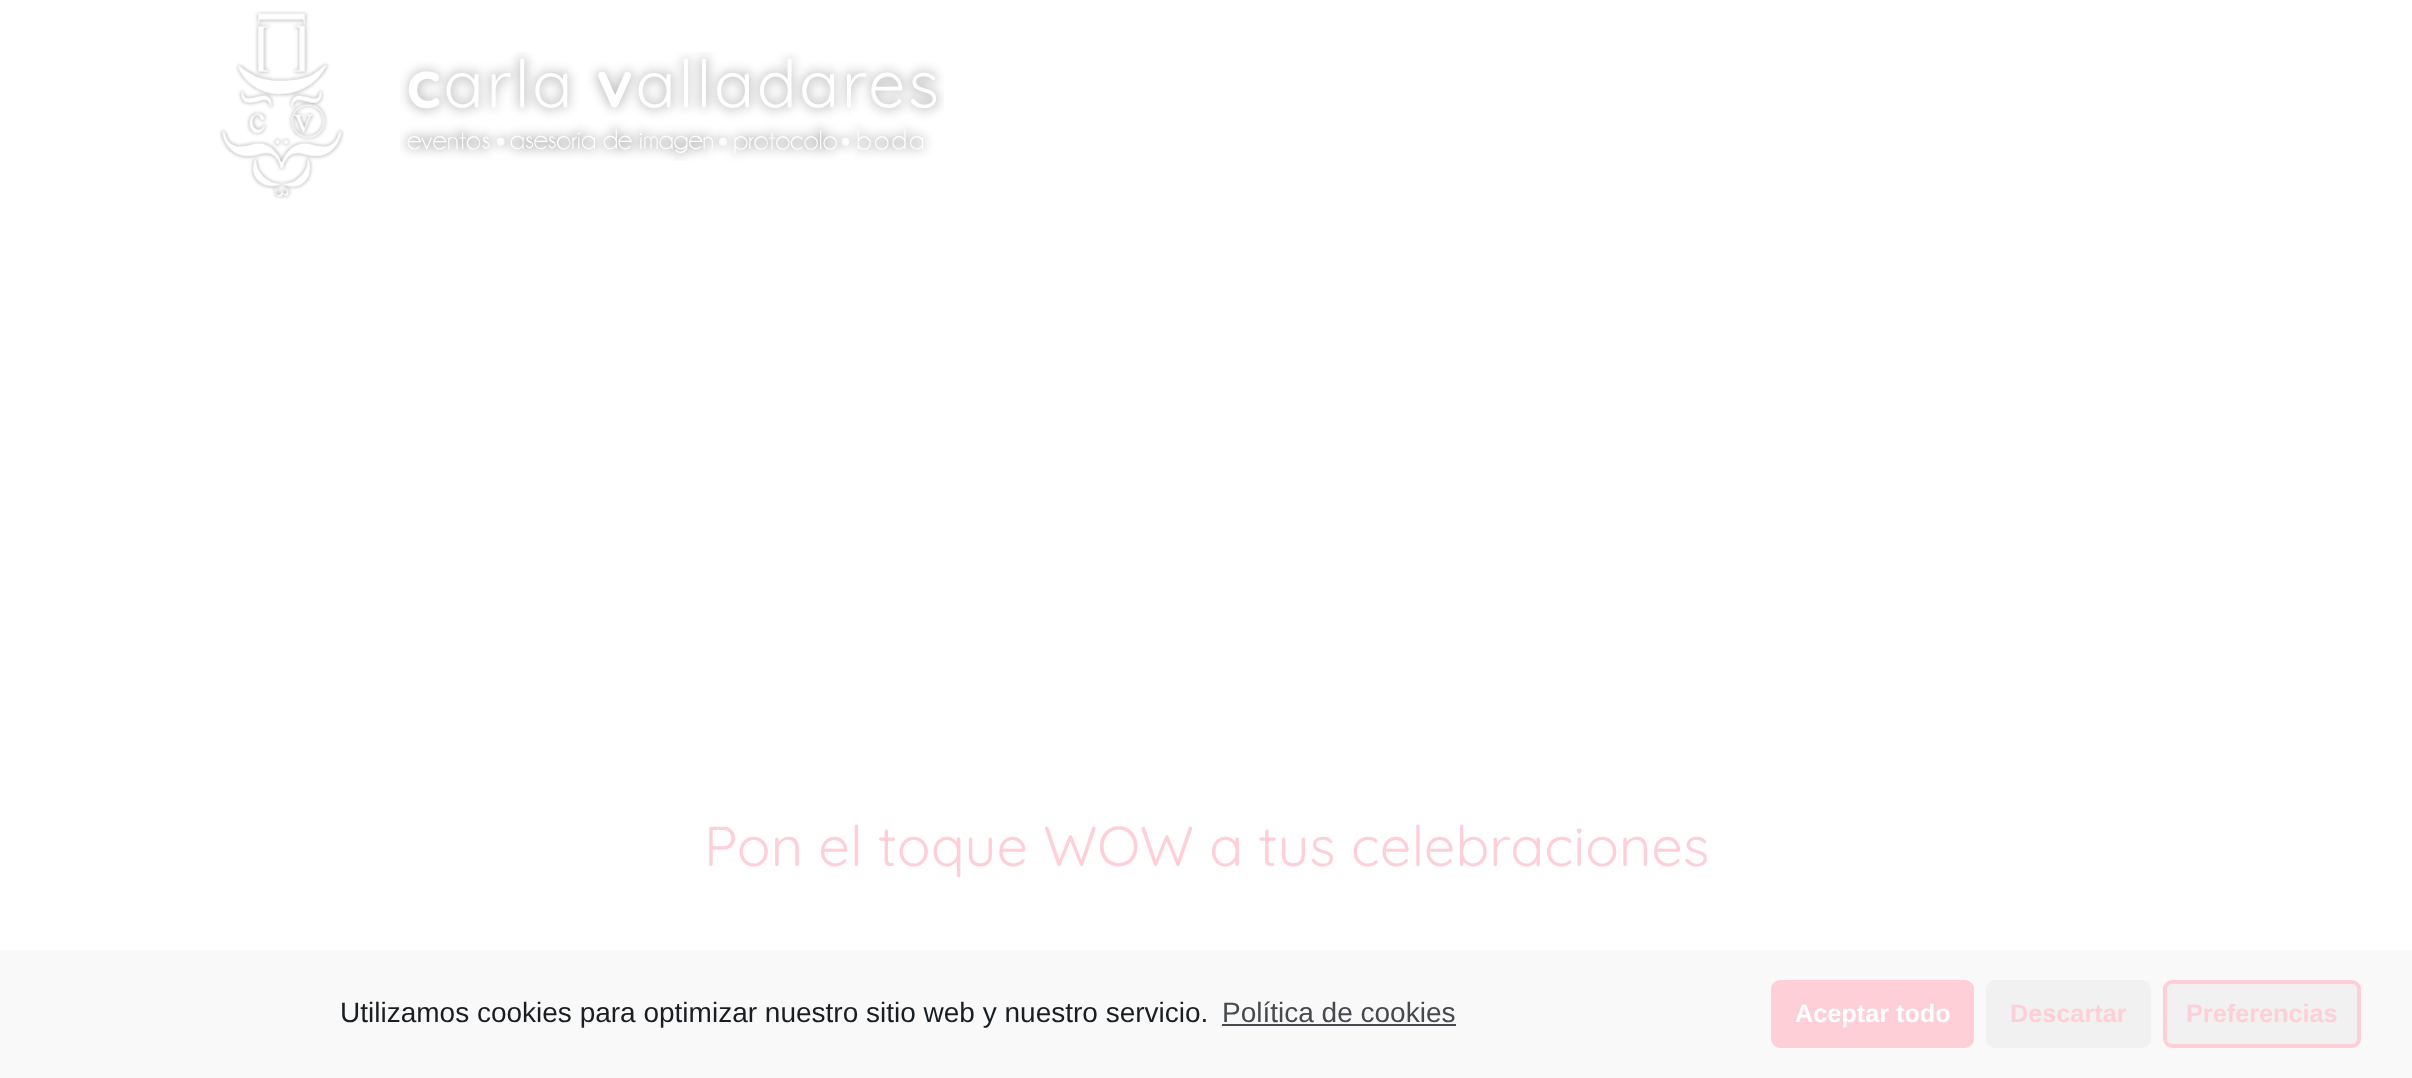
<?xml version="1.0" encoding="UTF-8"?>
<svg xmlns="http://www.w3.org/2000/svg" xmlns:xlink="http://www.w3.org/1999/xlink" width="2412" height="1078">
  <rect width="100%" height="100%" fill="#ffffff" />
  <image x="219" y="11" width="125" height="188" xlink:href="image1.png" />
  <image x="400" y="52" width="544" height="109" xlink:href="image2.png" />
  <rect y="950" width="2412" height="128" fill="#f9f9f9" />
  <rect x="1222" y="1024" width="234" height="2" fill="#464a4e" />
  <rect x="1773" y="982" width="199" height="64" rx="7" fill="#ffcfd8" stroke="#ffcfd8" stroke-width="4" />
  <rect x="1986" y="980" width="165" height="68" rx="9" fill="#f1f1f1" />
  <rect x="2165" y="982" width="194" height="64" rx="7" fill="#f1f1f1" stroke="#ffcfd8" stroke-width="4" />
  <text x="704" y="866" style="font-family: Quicksand; font-size: 56px; fill: #ffcfd8">Pon el toque WOW a tus celebraciones</text>
  <text x="340" y="1022" style="font-family: Liberation Sans; font-size: 28px; fill: #191e23">Utilizamos cookies para optimizar nuestro sitio web y nuestro servicio.</text>
  <text x="1222" y="1022" style="font-family: Liberation Sans; font-size: 28px; fill: #464a4e">Política de cookies</text>
  <text x="1795" y="1022" style="font-family: Liberation Sans; font-size: 25.25px; font-weight: bold; fill: #ffffff">Aceptar todo</text>
  <text x="2010" y="1022" style="font-family: Liberation Sans; font-size: 25.25px; font-weight: bold; fill: #ffcfd8">Descartar</text>
  <text x="2186" y="1022" style="font-family: Liberation Sans; font-size: 25.25px; font-weight: bold; fill: #ffcfd8">Preferencias</text>
</svg>
